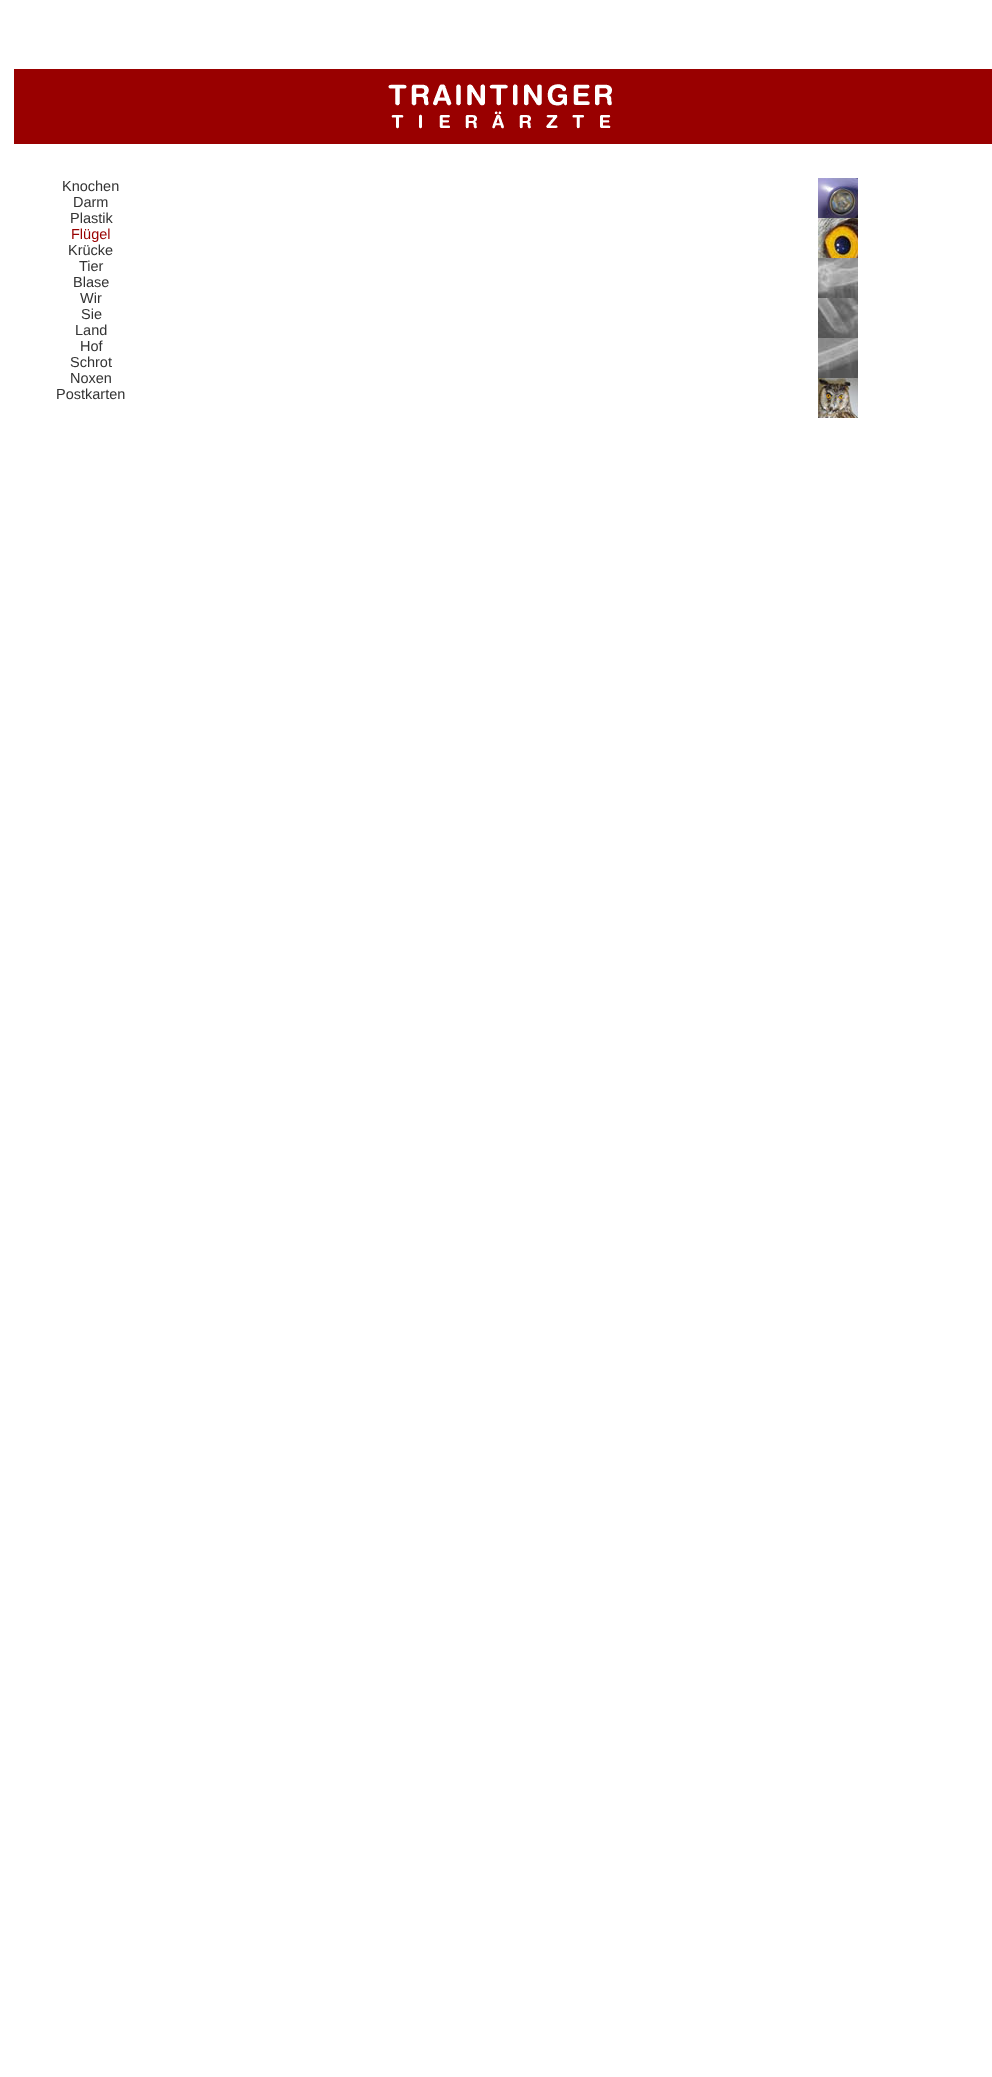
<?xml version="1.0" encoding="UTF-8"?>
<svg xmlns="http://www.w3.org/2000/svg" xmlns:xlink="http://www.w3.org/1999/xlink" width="992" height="2077">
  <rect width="100%" height="100%" fill="#ffffff" />
  <image x="14" y="69" width="978" height="75" xlink:href="image1.png" />
  <image x="818" y="178" width="40" height="40" xlink:href="image2.png" />
  <image x="818" y="218" width="40" height="40" xlink:href="image3.png" />
  <image x="818" y="258" width="40" height="40" xlink:href="image4.png" />
  <image x="818" y="298" width="40" height="40" xlink:href="image5.png" />
  <image x="818" y="338" width="40" height="40" xlink:href="image6.png" />
  <image x="818" y="378" width="40" height="40" xlink:href="image7.png" />
  <text x="62" y="191" style="font-family: Liberation Sans; font-size: 14.5px; fill: #333333">Knochen</text>
  <text x="73" y="207" style="font-family: Liberation Sans; font-size: 14.5px; fill: #333333">Darm</text>
  <text x="70" y="223" style="font-family: Liberation Sans; font-size: 14.5px; fill: #333333">Plastik</text>
  <text x="71" y="239" style="font-family: Liberation Sans; font-size: 14.5px; fill: #990000">Flügel</text>
  <text x="68" y="255" style="font-family: Liberation Sans; font-size: 14.5px; fill: #333333">Krücke</text>
  <text x="79" y="271" style="font-family: Liberation Sans; font-size: 14.5px; fill: #333333">Tier</text>
  <text x="73" y="287" style="font-family: Liberation Sans; font-size: 14.5px; fill: #333333">Blase</text>
  <text x="80" y="303" style="font-family: Liberation Sans; font-size: 14.5px; fill: #333333">Wir</text>
  <text x="81" y="319" style="font-family: Liberation Sans; font-size: 14.5px; fill: #333333">Sie</text>
  <text x="75" y="335" style="font-family: Liberation Sans; font-size: 14.5px; fill: #333333">Land</text>
  <text x="80" y="351" style="font-family: Liberation Sans; font-size: 14.5px; fill: #333333">Hof</text>
  <text x="70" y="367" style="font-family: Liberation Sans; font-size: 14.5px; fill: #333333">Schrot</text>
  <text x="70" y="383" style="font-family: Liberation Sans; font-size: 14.5px; fill: #333333">Noxen</text>
  <text x="56" y="399" style="font-family: Liberation Sans; font-size: 14.5px; fill: #333333">Postkarten</text>
</svg>
